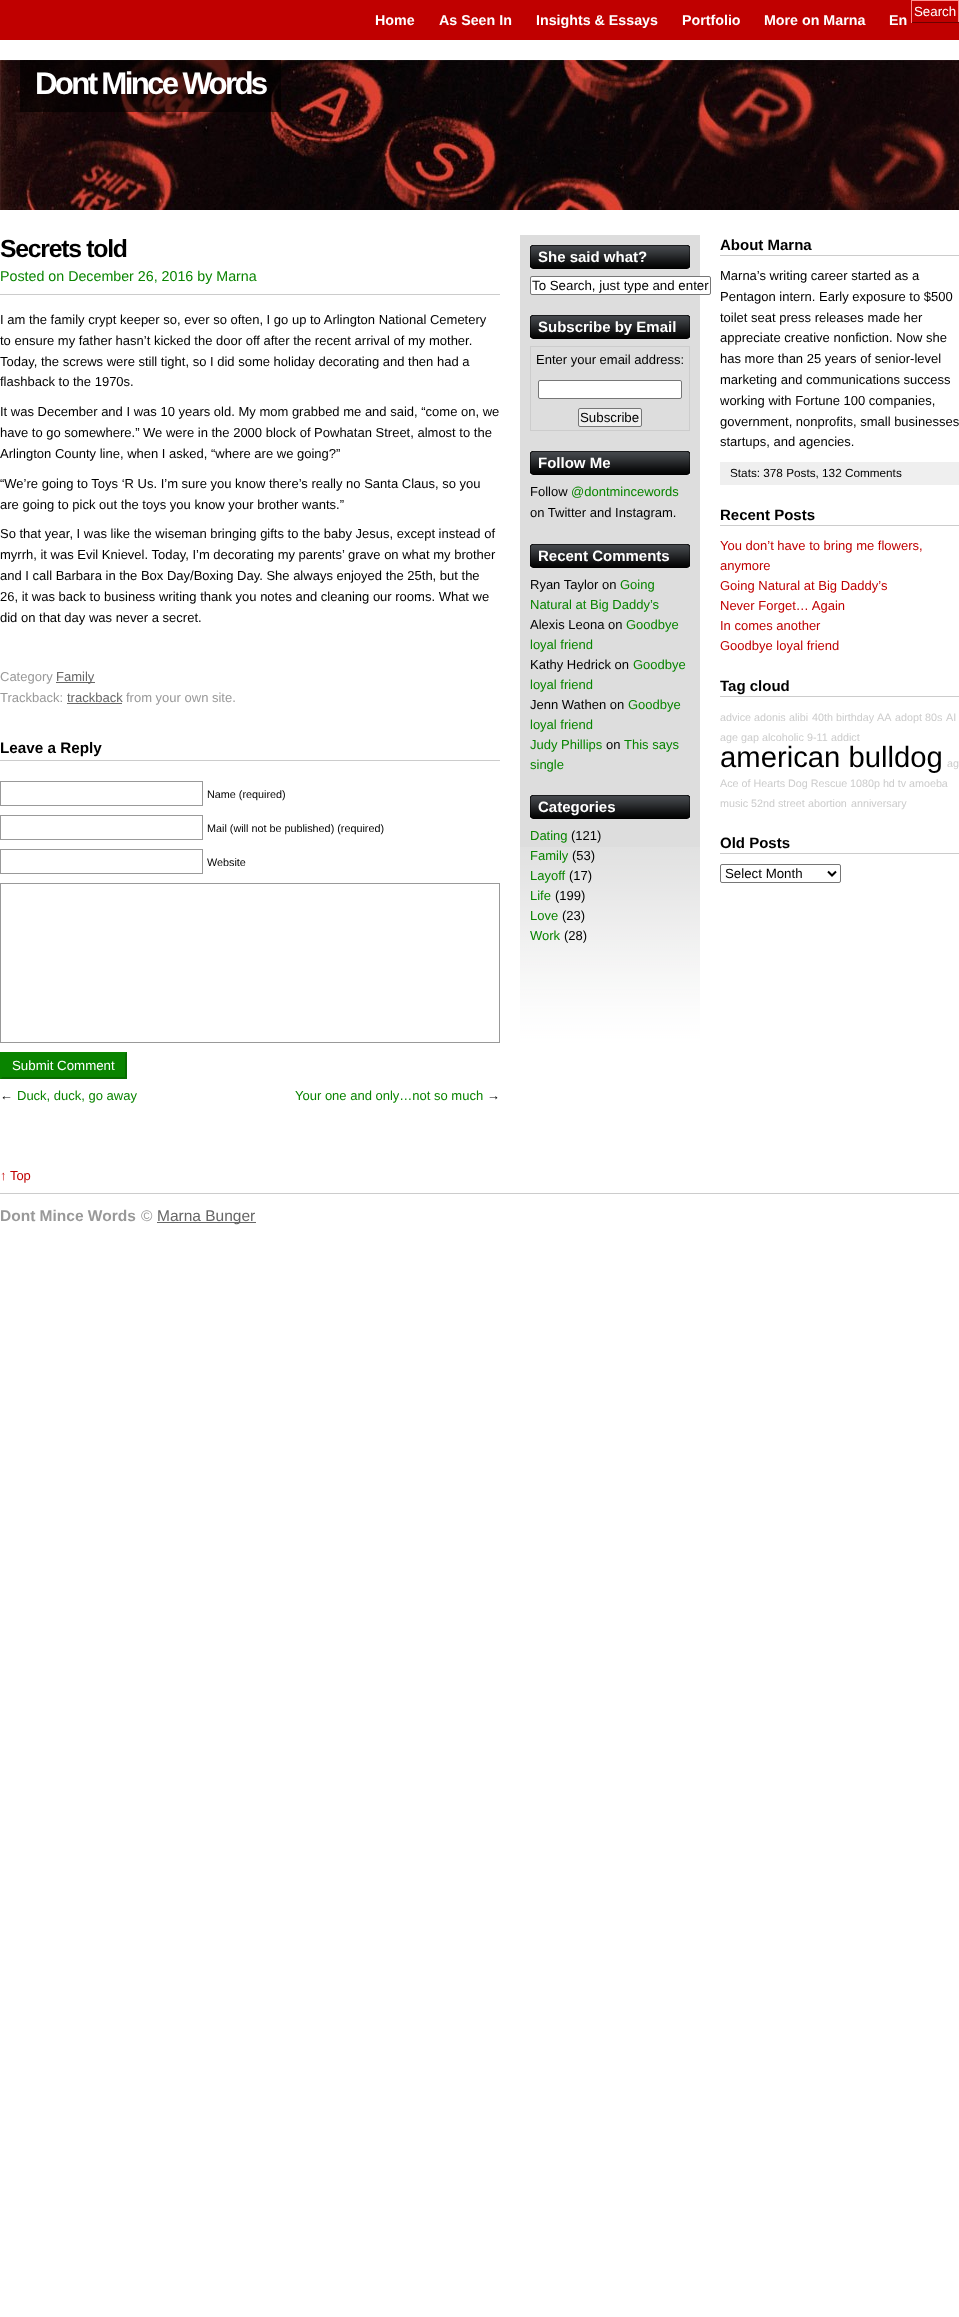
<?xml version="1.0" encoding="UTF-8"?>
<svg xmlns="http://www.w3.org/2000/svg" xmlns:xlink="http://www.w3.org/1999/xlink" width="959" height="2317">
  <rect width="100%" height="100%" fill="#ffffff" />
  <rect y="294" width="500" height="1" fill="#cccccc" />
  <rect x="56" y="682" width="39" height="1" fill="#666666" />
  <rect x="67" y="703" width="55" height="1" fill="#666666" />
  <rect y="760" width="500" height="1" fill="#cccccc" />
  <rect x="0.5" y="781.5" width="202" height="24" fill="none" stroke="#999999" />
  <rect x="0.5" y="815.5" width="202" height="24" fill="none" stroke="#999999" />
  <rect x="0.5" y="849.5" width="202" height="24" fill="none" stroke="#999999" />
  <rect x="0.5" y="883.5" width="499" height="159" fill="none" stroke="#999999" />
  <rect y="1052" width="127" height="27" fill="#098400" />
  <path d="M 127 1052 v 27 l -2 -2 v -23 z" fill="#076c00" />
  <path d="M 127 1079 h -127 l 2 -2 h 123 z" fill="#076c00" />
  <path d="M 0 1079 v -27 l 2 2 v 23 z" fill="#098400" />
  <rect x="520" y="235" width="180" height="612" fill="#dddddd" />
  <image x="520" y="847" width="180" height="219" xlink:href="image1.png" />
  <rect width="959" height="40" fill="#c00000" />
  <rect x="911" width="48" height="1" fill="#ff8f8d" />
  <rect x="958" width="1" height="23" fill="#ff8f8d" />
  <rect x="911" y="22" width="48" height="1" fill="#6c0200" />
  <rect x="911" width="1" height="23" fill="#ff8f8d" />
  <rect x="530.5" y="276.5" width="180" height="18" rx="1.5" fill="#ffffff" stroke="#767676" />
  <image x="530" y="245" width="160" height="24" xlink:href="image2.png" />
  <image x="530" y="315" width="160" height="24" xlink:href="image2.png" />
  <rect x="530.5" y="346.5" width="159" height="84" fill="none" stroke="#cccccc" />
  <rect x="538.5" y="380.5" width="143" height="18" rx="1.5" fill="#ffffff" stroke="#767676" />
  <rect x="578.5" y="408.5" width="63" height="18" rx="1.5" fill="#efefef" stroke="#767676" />
  <image x="530" y="451" width="160" height="24" xlink:href="image2.png" />
  <image x="530" y="544" width="160" height="24" xlink:href="image2.png" />
  <image x="530" y="795" width="160" height="24" xlink:href="image2.png" />
  <rect x="720" y="255" width="239" height="1" fill="#cccccc" />
  <rect x="720" y="462" width="239" height="23" fill="#efefef" />
  <rect x="720" y="525" width="239" height="1" fill="#cccccc" />
  <rect x="720" y="696" width="239" height="1" fill="#cccccc" />
  <rect x="720" y="853" width="239" height="1" fill="#cccccc" />
  <rect x="720.5" y="864.5" width="120" height="18" rx="1.5" fill="none" stroke="#767676" />
  <path d="M 828 871.5 l 4 4 l 4 -4" fill="none" stroke="#000000" stroke-width="2" />
  <image x="0" y="60" width="959" height="150" xlink:href="image3.png" />
  <rect x="20" y="60" width="261" height="52" fill="#000000" fill-opacity="0.6" />
  <rect y="1193" width="959" height="1" fill="#cccccc" />
  <rect x="157" y="1222" width="99" height="1" fill="#666666" />
  <text x="0" y="257" style="font-family: Liberation Sans; font-size: 24.75px; font-weight: bold; letter-spacing: -1.25px; fill: #000000">Secrets told</text>
  <text x="0" y="281" style="font-family: Liberation Sans; font-size: 14.25px; fill: #098400">Posted on December 26, 2016 by Marna</text>
  <text x="0" y="324" style="font-family: Liberation Sans; font-size: 13px; fill: #000000">I am the family crypt keeper so, ever so often, I go up to Arlington National Cemetery</text>
  <text x="0" y="345" style="font-family: Liberation Sans; font-size: 13px; fill: #000000">to ensure my father hasn’t kicked the door off after the recent arrival of my mother.</text>
  <text x="0" y="366" style="font-family: Liberation Sans; font-size: 13px; fill: #000000">Today, the screws were still tight, so I did some holiday decorating and then had a</text>
  <text x="0" y="386" style="font-family: Liberation Sans; font-size: 13px; fill: #000000">flashback to the 1970s.</text>
  <text x="0" y="416" style="font-family: Liberation Sans; font-size: 13px; fill: #000000">It was December and I was 10 years old. My mom grabbed me and said, “come on, we</text>
  <text x="0" y="437" style="font-family: Liberation Sans; font-size: 13px; fill: #000000">have to go somewhere.” We were in the 2000 block of Powhatan Street, almost to the</text>
  <text x="0" y="458" style="font-family: Liberation Sans; font-size: 13px; fill: #000000">Arlington County line, when I asked, “where are we going?”</text>
  <text x="0" y="488" style="font-family: Liberation Sans; font-size: 13px; fill: #000000">“We’re going to Toys ‘R Us. I’m sure you know there’s really no Santa Claus, so you</text>
  <text x="0" y="509" style="font-family: Liberation Sans; font-size: 13px; fill: #000000">are going to pick out the toys you know your brother wants.”</text>
  <text x="0" y="538" style="font-family: Liberation Sans; font-size: 13px; fill: #000000">So that year, I was like the wiseman bringing gifts to the baby Jesus, except instead of</text>
  <text x="0" y="559" style="font-family: Liberation Sans; font-size: 13px; fill: #000000">myrrh, it was Evil Knievel. Today, I’m decorating my parents’ grave on what my brother</text>
  <text x="0" y="580" style="font-family: Liberation Sans; font-size: 13px; fill: #000000">and I call Barbara in the Box Day/Boxing Day. She always enjoyed the 25th, but the</text>
  <text x="0" y="601" style="font-family: Liberation Sans; font-size: 13px; fill: #000000">26, it was back to business writing thank you notes and cleaning our rooms. What we</text>
  <text x="0" y="622" style="font-family: Liberation Sans; font-size: 13px; fill: #000000">did on that day was never a secret.</text>
  <text x="0" y="681" style="font-family: Liberation Sans; font-size: 13px; fill: #999999">Category</text>
  <text x="56" y="681" style="font-family: Liberation Sans; font-size: 13px; fill: #666666">Family</text>
  <text x="0" y="702" style="font-family: Liberation Sans; font-size: 13px; fill: #999999">Trackback:</text>
  <text x="67" y="702" style="font-family: Liberation Sans; font-size: 13px; fill: #666666">trackback</text>
  <text x="126" y="702" style="font-family: Liberation Sans; font-size: 13px; fill: #999999">from your own site.</text>
  <text x="0" y="753" style="font-family: Liberation Sans; font-size: 15.25px; font-weight: bold; fill: #000000">Leave a Reply</text>
  <text x="207" y="798" style="font-family: Liberation Sans; font-size: 10.8px; fill: #000000">Name (required)</text>
  <text x="207" y="832" style="font-family: Liberation Sans; font-size: 10.8px; fill: #000000">Mail (will not be published) (required)</text>
  <text x="207" y="866" style="font-family: Liberation Sans; font-size: 10.8px; fill: #000000">Website</text>
  <text x="12" y="1070" style="font-family: Liberation Sans; font-size: 13.3px; fill: #ffffff">Submit Comment</text>
  <text x="0" y="1100" style="font-family: Liberation Sans; font-size: 13px; fill: #000000">←</text>
  <text x="17" y="1100" style="font-family: Liberation Sans; font-size: 13px; fill: #098400">Duck, duck, go away</text>
  <text x="295" y="1100" style="font-family: Liberation Sans; font-size: 13px; fill: #098400">Your one and only…not so much</text>
  <text x="487" y="1100" style="font-family: Liberation Sans; font-size: 13px; fill: #000000">→</text>
  <text x="914" y="16" style="font-family: Liberation Sans; font-size: 13.3px; fill: #ffffff">Search</text>
  <text x="532" y="290" style="font-family: Liberation Sans; font-size: 13.3px; fill: #000000">To Search, just type and enter</text>
  <text x="538" y="262" style="font-family: Liberation Sans; font-size: 15px; font-weight: bold; fill: #ffffff">She said what?</text>
  <text x="538" y="332" style="font-family: Liberation Sans; font-size: 15px; font-weight: bold; fill: #ffffff">Subscribe by Email</text>
  <text x="536" y="364" style="font-family: Liberation Sans; font-size: 13px; fill: #000000">Enter your email address:</text>
  <text x="580" y="422" style="font-family: Liberation Sans; font-size: 13.3px; fill: #000000">Subscribe</text>
  <text x="538" y="468" style="font-family: Liberation Sans; font-size: 15px; font-weight: bold; fill: #ffffff">Follow Me</text>
  <text x="530" y="496" style="font-family: Liberation Sans; font-size: 13px; fill: #000000">Follow</text>
  <text x="571" y="496" style="font-family: Liberation Sans; font-size: 13px; fill: #098400">@dontmincewords</text>
  <text x="530" y="517" style="font-family: Liberation Sans; font-size: 13px; fill: #000000">on Twitter and Instagram.</text>
  <text x="538" y="561" style="font-family: Liberation Sans; font-size: 15px; font-weight: bold; fill: #ffffff">Recent Comments</text>
  <text x="530" y="589" style="font-family: Liberation Sans; font-size: 13px; fill: #000000">Ryan Taylor on</text>
  <text x="620" y="589" style="font-family: Liberation Sans; font-size: 13px; fill: #098400">Going</text>
  <text x="530" y="609" style="font-family: Liberation Sans; font-size: 13px; fill: #098400">Natural at Big Daddy’s</text>
  <text x="530" y="629" style="font-family: Liberation Sans; font-size: 13px; fill: #000000">Alexis Leona on</text>
  <text x="626" y="629" style="font-family: Liberation Sans; font-size: 13px; fill: #098400">Goodbye</text>
  <text x="530" y="649" style="font-family: Liberation Sans; font-size: 13px; fill: #098400">loyal friend</text>
  <text x="530" y="669" style="font-family: Liberation Sans; font-size: 13px; fill: #000000">Kathy Hedrick on</text>
  <text x="633" y="669" style="font-family: Liberation Sans; font-size: 13px; fill: #098400">Goodbye</text>
  <text x="530" y="689" style="font-family: Liberation Sans; font-size: 13px; fill: #098400">loyal friend</text>
  <text x="530" y="709" style="font-family: Liberation Sans; font-size: 13px; fill: #000000">Jenn Wathen on</text>
  <text x="628" y="709" style="font-family: Liberation Sans; font-size: 13px; fill: #098400">Goodbye</text>
  <text x="530" y="729" style="font-family: Liberation Sans; font-size: 13px; fill: #098400">loyal friend</text>
  <text x="530" y="749" style="font-family: Liberation Sans; font-size: 13px; fill: #098400">Judy Phillips</text>
  <text x="606" y="749" style="font-family: Liberation Sans; font-size: 13px; fill: #000000">on</text>
  <text x="624" y="749" style="font-family: Liberation Sans; font-size: 13px; fill: #098400">This says</text>
  <text x="530" y="769" style="font-family: Liberation Sans; font-size: 13px; fill: #098400">single</text>
  <text x="538" y="812" style="font-family: Liberation Sans; font-size: 15px; font-weight: bold; fill: #ffffff">Categories</text>
  <text x="530" y="840" style="font-family: Liberation Sans; font-size: 13px; fill: #098400">Dating</text>
  <text x="571" y="840" style="font-family: Liberation Sans; font-size: 13px; fill: #000000">(121)</text>
  <text x="530" y="860" style="font-family: Liberation Sans; font-size: 13px; fill: #098400">Family</text>
  <text x="572" y="860" style="font-family: Liberation Sans; font-size: 13px; fill: #000000">(53)</text>
  <text x="530" y="880" style="font-family: Liberation Sans; font-size: 13px; fill: #098400">Layoff</text>
  <text x="569" y="880" style="font-family: Liberation Sans; font-size: 13px; fill: #000000">(17)</text>
  <text x="530" y="900" style="font-family: Liberation Sans; font-size: 13px; fill: #098400">Life</text>
  <text x="555" y="900" style="font-family: Liberation Sans; font-size: 13px; fill: #000000">(199)</text>
  <text x="530" y="920" style="font-family: Liberation Sans; font-size: 13px; fill: #098400">Love</text>
  <text x="562" y="920" style="font-family: Liberation Sans; font-size: 13px; fill: #000000">(23)</text>
  <text x="530" y="940" style="font-family: Liberation Sans; font-size: 13px; fill: #098400">Work</text>
  <text x="564" y="940" style="font-family: Liberation Sans; font-size: 13px; fill: #000000">(28)</text>
  <text x="720" y="250" style="font-family: Liberation Sans; font-size: 15px; font-weight: bold; fill: #000000">About Marna</text>
  <text x="720" y="280" style="font-family: Liberation Sans; font-size: 13px; fill: #000000">Marna’s writing career started as a</text>
  <text x="720" y="301" style="font-family: Liberation Sans; font-size: 13px; fill: #000000">Pentagon intern. Early exposure to $500</text>
  <text x="720" y="322" style="font-family: Liberation Sans; font-size: 13px; fill: #000000">toilet seat press releases made her</text>
  <text x="720" y="342" style="font-family: Liberation Sans; font-size: 13px; fill: #000000">appreciate creative nonfiction. Now she</text>
  <text x="720" y="363" style="font-family: Liberation Sans; font-size: 13px; fill: #000000">has more than 25 years of senior-level</text>
  <text x="720" y="384" style="font-family: Liberation Sans; font-size: 13px; fill: #000000">marketing and communications success</text>
  <text x="720" y="405" style="font-family: Liberation Sans; font-size: 13px; fill: #000000">working with Fortune 100 companies,</text>
  <text x="720" y="426" style="font-family: Liberation Sans; font-size: 13px; fill: #000000">government, nonprofits, small businesses</text>
  <text x="720" y="446" style="font-family: Liberation Sans; font-size: 13px; fill: #000000">startups, and agencies.</text>
  <text x="730" y="477" style="font-family: Liberation Sans; font-size: 11.75px; fill: #000000">Stats: 378 Posts, 132 Comments</text>
  <text x="720" y="520" style="font-family: Liberation Sans; font-size: 15px; font-weight: bold; fill: #000000">Recent Posts</text>
  <text x="720" y="550" style="font-family: Liberation Sans; font-size: 13px; fill: #c00000">You don’t have to bring me flowers,</text>
  <text x="720" y="570" style="font-family: Liberation Sans; font-size: 13px; fill: #c00000">anymore</text>
  <text x="720" y="590" style="font-family: Liberation Sans; font-size: 13px; fill: #c00000">Going Natural at Big Daddy’s</text>
  <text x="720" y="610" style="font-family: Liberation Sans; font-size: 13px; fill: #c00000">Never Forget… Again</text>
  <text x="720" y="630" style="font-family: Liberation Sans; font-size: 13px; fill: #c00000">In comes another</text>
  <text x="720" y="650" style="font-family: Liberation Sans; font-size: 13px; fill: #c00000">Goodbye loyal friend</text>
  <text x="720" y="691" style="font-family: Liberation Sans; font-size: 15px; font-weight: bold; fill: #000000">Tag cloud</text>
  <text x="720" y="721" style="font-family: Liberation Sans; font-size: 10.75px; fill: #cccccc">advice</text>
  <text x="754" y="721" style="font-family: Liberation Sans; font-size: 10.75px; fill: #cccccc">adonis</text>
  <text x="789" y="721" style="font-family: Liberation Sans; font-size: 10.75px; fill: #cccccc">alibi</text>
  <text x="812" y="721" style="font-family: Liberation Sans; font-size: 10.75px; fill: #cccccc">40th birthday</text>
  <text x="877" y="721" style="font-family: Liberation Sans; font-size: 10.75px; fill: #cccccc">AA</text>
  <text x="895" y="721" style="font-family: Liberation Sans; font-size: 10.75px; fill: #cccccc">adopt</text>
  <text x="925" y="721" style="font-family: Liberation Sans; font-size: 10.75px; fill: #cccccc">80s</text>
  <text x="946" y="721" style="font-family: Liberation Sans; font-size: 10.75px; fill: #cccccc">AI</text>
  <text x="720" y="741" style="font-family: Liberation Sans; font-size: 10.75px; fill: #cccccc">age gap</text>
  <text x="762" y="741" style="font-family: Liberation Sans; font-size: 10.75px; fill: #cccccc">alcoholic</text>
  <text x="807" y="741" style="font-family: Liberation Sans; font-size: 10.75px; fill: #cccccc">9-11</text>
  <text x="831" y="741" style="font-family: Liberation Sans; font-size: 10.75px; fill: #cccccc">addict</text>
  <text x="720" y="767" style="font-family: Liberation Sans; font-size: 29.25px; fill: #000000">american bulldog</text>
  <text x="947" y="767" style="font-family: Liberation Sans; font-size: 10.75px; fill: #cccccc">ag</text>
  <text x="720" y="787" style="font-family: Liberation Sans; font-size: 10.75px; fill: #cccccc">Ace of Hearts Dog Rescue</text>
  <text x="850" y="787" style="font-family: Liberation Sans; font-size: 10.75px; fill: #cccccc">1080p hd tv</text>
  <text x="909" y="787" style="font-family: Liberation Sans; font-size: 10.75px; fill: #cccccc">amoeba</text>
  <text x="720" y="807" style="font-family: Liberation Sans; font-size: 10.75px; fill: #cccccc">music</text>
  <text x="751" y="807" style="font-family: Liberation Sans; font-size: 10.75px; fill: #cccccc">52nd street</text>
  <text x="808" y="807" style="font-family: Liberation Sans; font-size: 10.75px; fill: #cccccc">abortion</text>
  <text x="851" y="807" style="font-family: Liberation Sans; font-size: 10.75px; fill: #cccccc">anniversary</text>
  <text x="720" y="848" style="font-family: Liberation Sans; font-size: 15px; font-weight: bold; fill: #000000">Old Posts</text>
  <text x="725" y="878" style="font-family: Liberation Sans; font-size: 13.3px; fill: #000000">Select Month</text>
  <text x="35" y="94" style="font-family: Liberation Sans; font-size: 31.25px; font-weight: bold; letter-spacing: -2.7px; fill: #ffffff">Dont Mince Words</text>
  <text x="375" y="25" style="font-family: Liberation Sans; font-size: 14.25px; font-weight: bold; fill: #ffffff">Home</text>
  <text x="439" y="25" style="font-family: Liberation Sans; font-size: 14.25px; font-weight: bold; fill: #ffffff">As Seen In</text>
  <text x="536" y="25" style="font-family: Liberation Sans; font-size: 14.25px; font-weight: bold; fill: #ffffff">Insights &amp; Essays</text>
  <text x="682" y="25" style="font-family: Liberation Sans; font-size: 14.25px; font-weight: bold; fill: #ffffff">Portfolio</text>
  <text x="764" y="25" style="font-family: Liberation Sans; font-size: 14.25px; font-weight: bold; fill: #ffffff">More on Marna</text>
  <text x="889" y="25" style="font-family: Liberation Sans; font-size: 14.25px; font-weight: bold; fill: #ffffff">En</text>
  <text x="0" y="1180" style="font-family: Liberation Sans; font-size: 13px; fill: #c00000">↑ Top</text>
  <text x="0" y="1221" style="font-family: Liberation Sans; font-size: 15.5px; font-weight: bold; fill: #999999">Dont Mince Words</text>
  <text x="141" y="1221" style="font-family: Liberation Sans; font-size: 15.5px; fill: #999999">©</text>
  <text x="157" y="1221" style="font-family: Liberation Sans; font-size: 15.5px; fill: #666666">Marna Bunger</text>
</svg>
